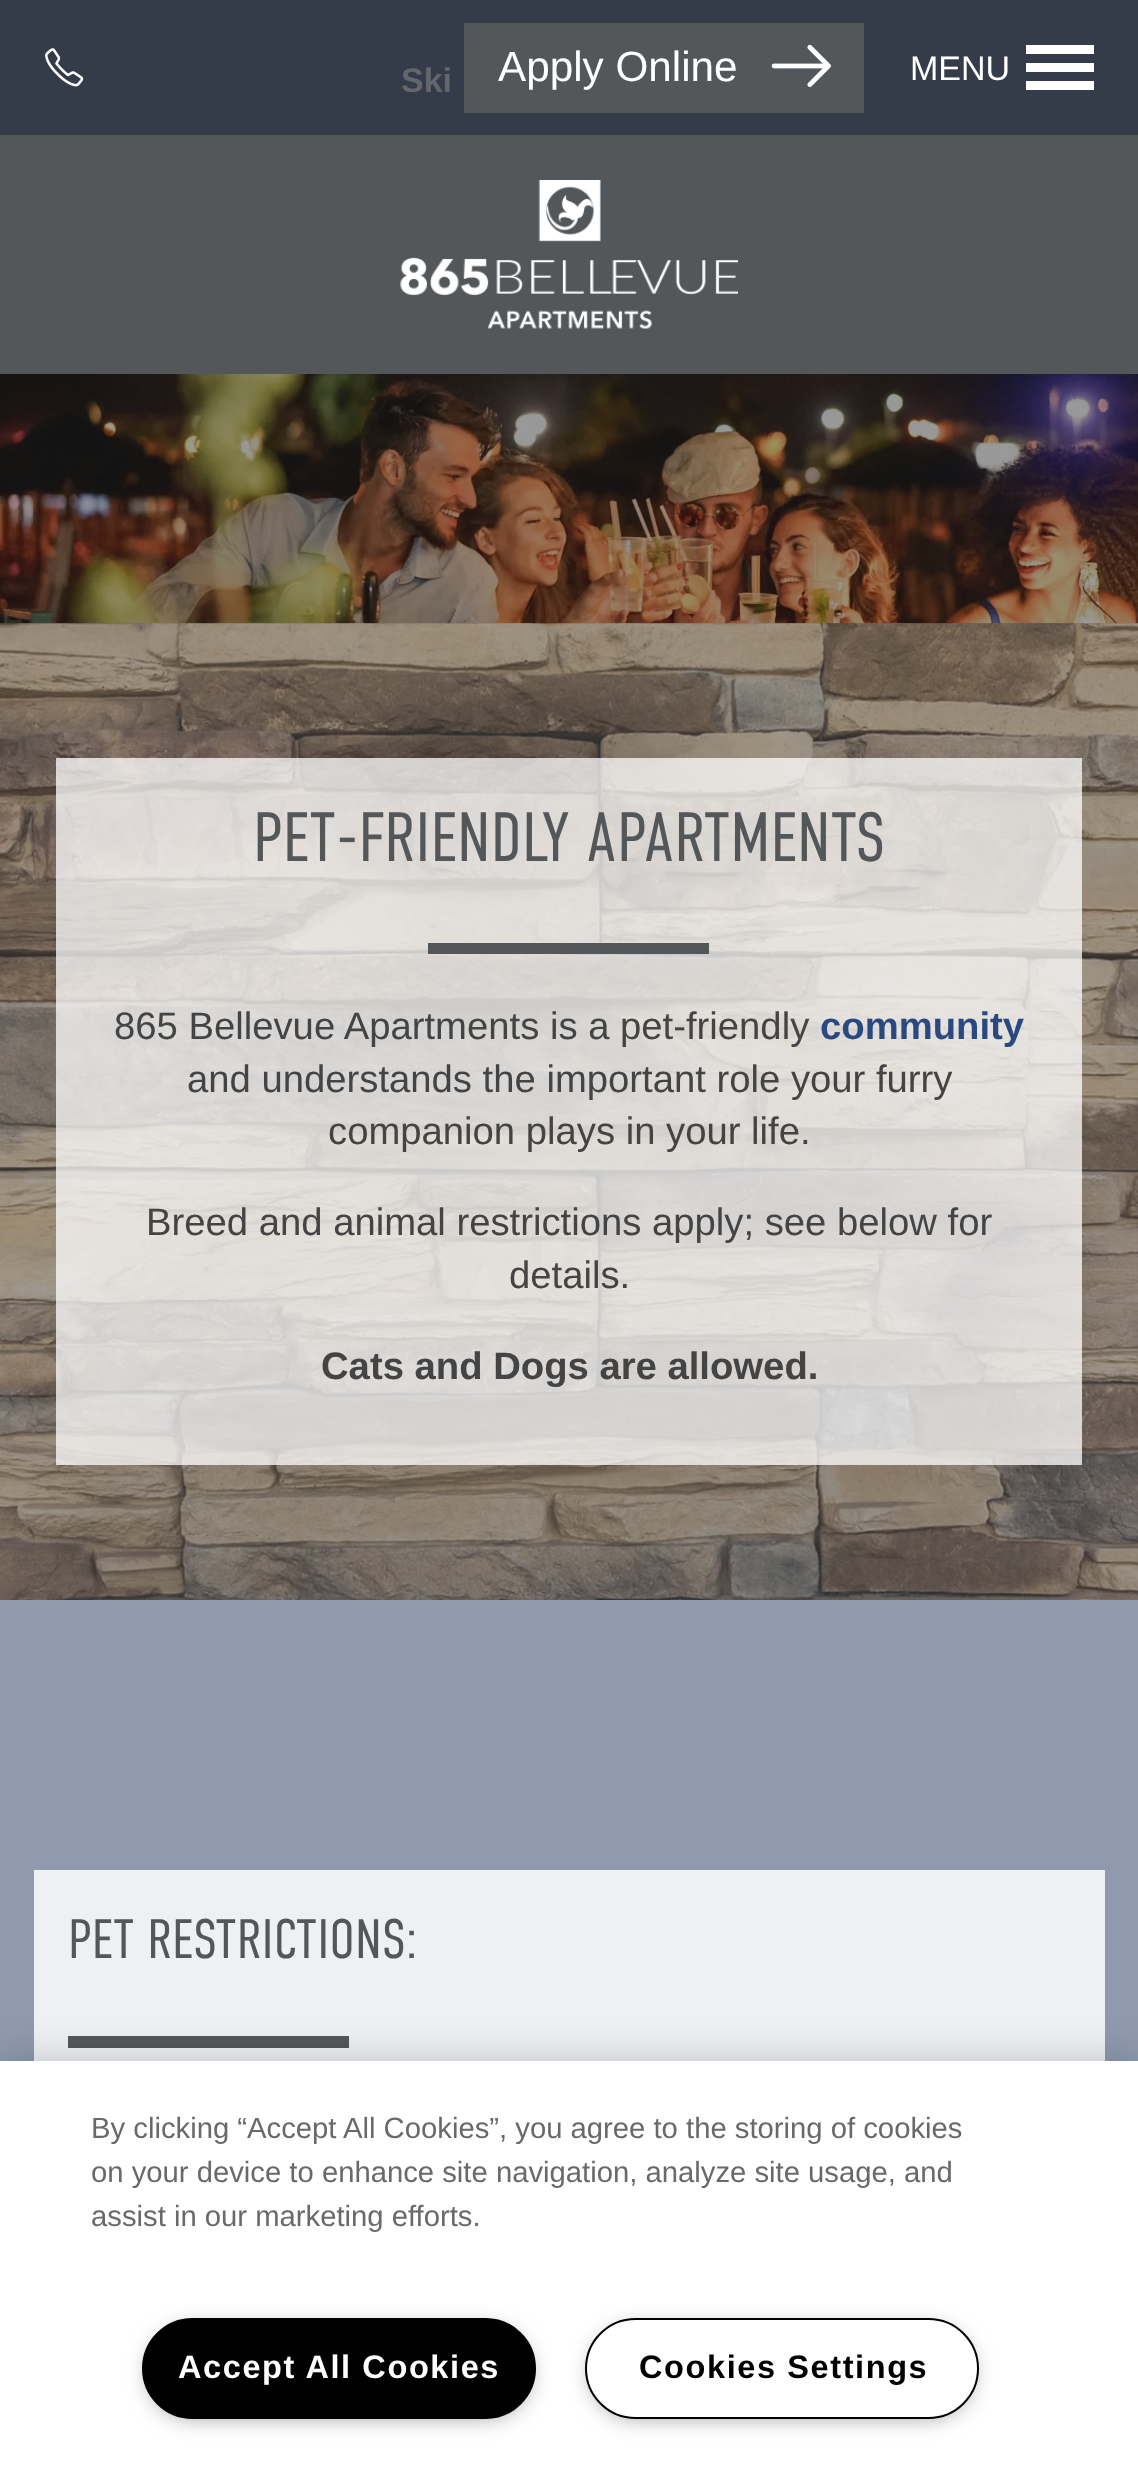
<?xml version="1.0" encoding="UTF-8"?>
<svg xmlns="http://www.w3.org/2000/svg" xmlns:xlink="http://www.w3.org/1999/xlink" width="1138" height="2474">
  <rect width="100%" height="100%" fill="#ffffff" />
  <rect width="1138" height="135" fill="#343b49" />
  <image x="45" y="48" width="39" height="39" xlink:href="image1.png" />
  <rect x="464" y="23" width="400" height="90" fill="#545759" />
  <image x="771" y="44" width="60" height="43" xlink:href="image2.png" />
  <rect x="1026" y="45" width="68" height="9" fill="#ffffff" />
  <rect x="1026" y="63" width="68" height="9" fill="#ffffff" />
  <rect x="1026" y="81" width="68" height="9" fill="#ffffff" />
  <rect y="135" width="1138" height="239" fill="#545759" />
  <image x="400" y="180" width="338" height="149" xlink:href="image3.png" />
  <image x="0" y="374" width="1138" height="250" xlink:href="image4.png" />
  <image x="0" y="623" width="1138" height="977" xlink:href="image5.png" />
  <rect y="623" width="1138" height="977" fill="#545759" fill-opacity="0.5" />
  <rect x="56" y="758" width="1026" height="707" fill="#ffffff" fill-opacity="0.75" />
  <rect x="428" y="943" width="281" height="11" fill="#545759" />
  <rect y="1600" width="1138" height="461" fill="#8f9aaf" />
  <rect x="34" y="1870" width="1071" height="191" fill="#eef0f3" />
  <rect x="68" y="2036" width="281" height="12" fill="#545759" />
  <rect y="2061" width="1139" height="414" fill="#000000" fill-opacity="0.2" filter="blur(20px)" />
  <rect y="2061" width="1138" height="413" fill="#ffffff" />
  <rect x="149" y="2329" width="380" height="88" rx="44" fill="#999999" filter="blur(11px)" />
  <rect x="143" y="2319" width="392" height="99" rx="49.5" fill="#000000" stroke="#000000" stroke-width="2" />
  <rect x="592" y="2329" width="380" height="88" rx="44" fill="#999999" filter="blur(11px)" />
  <rect x="586" y="2319" width="392" height="99" rx="49.5" fill="#ffffff" stroke="#000000" stroke-width="2" />
  <text x="498" y="81" style="font-family: Liberation Sans; font-size: 42.25px; fill: #ffffff">Apply Online</text>
  <text x="910" y="80" style="font-family: Liberation Sans; font-size: 34px; fill: #ffffff">MENU</text>
  <text x="253" y="861" style="font-family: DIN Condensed; font-size: 69.5px; font-weight: 300; fill: #545759">PET-FRIENDLY APARTMENTS</text>
  <text x="114" y="1039" style="font-family: Liberation Sans; font-size: 38.25px; fill: #444444">865 Bellevue Apartments is a pet-friendly</text>
  <text x="820" y="1039" style="font-family: Liberation Sans; font-size: 38.25px; font-weight: bold; fill: #294980">community</text>
  <text x="187" y="1092" style="font-family: Liberation Sans; font-size: 38.25px; fill: #444444">and understands the important role your furry</text>
  <text x="328" y="1144" style="font-family: Liberation Sans; font-size: 38.25px; fill: #444444">companion plays in your life.</text>
  <text x="146" y="1235" style="font-family: Liberation Sans; font-size: 38.25px; fill: #444444">Breed and animal restrictions apply; see below for</text>
  <text x="509" y="1288" style="font-family: Liberation Sans; font-size: 38.25px; fill: #444444">details.</text>
  <text x="321" y="1379" style="font-family: Liberation Sans; font-size: 38.25px; font-weight: bold; fill: #444444">Cats and Dogs are allowed.</text>
  <text x="68" y="1958" style="font-family: DIN Condensed; font-size: 55.5px; font-weight: 300; fill: #545759">PET RESTRICTIONS:</text>
  <text x="401" y="92" style="font-family: Liberation Sans; font-size: 34px; font-weight: bold; fill: #63666b">Ski</text>
  <text x="91" y="2138" style="font-family: Liberation Sans; font-size: 29.25px; fill: #696969">By clicking “Accept All Cookies”, you agree to the storing of cookies</text>
  <text x="91" y="2182" style="font-family: Liberation Sans; font-size: 29.25px; fill: #696969">on your device to enhance site navigation, analyze site usage, and</text>
  <text x="91" y="2226" style="font-family: Liberation Sans; font-size: 29.25px; fill: #696969">assist in our marketing efforts.</text>
  <text x="178" y="2378" style="font-family: Liberation Sans; font-size: 32.5px; font-weight: bold; letter-spacing: 1.6px; fill: #ffffff">Accept All Cookies</text>
  <text x="639" y="2378" style="font-family: Liberation Sans; font-size: 32.5px; font-weight: bold; letter-spacing: 1.6px; fill: #000000">Cookies Settings</text>
</svg>
